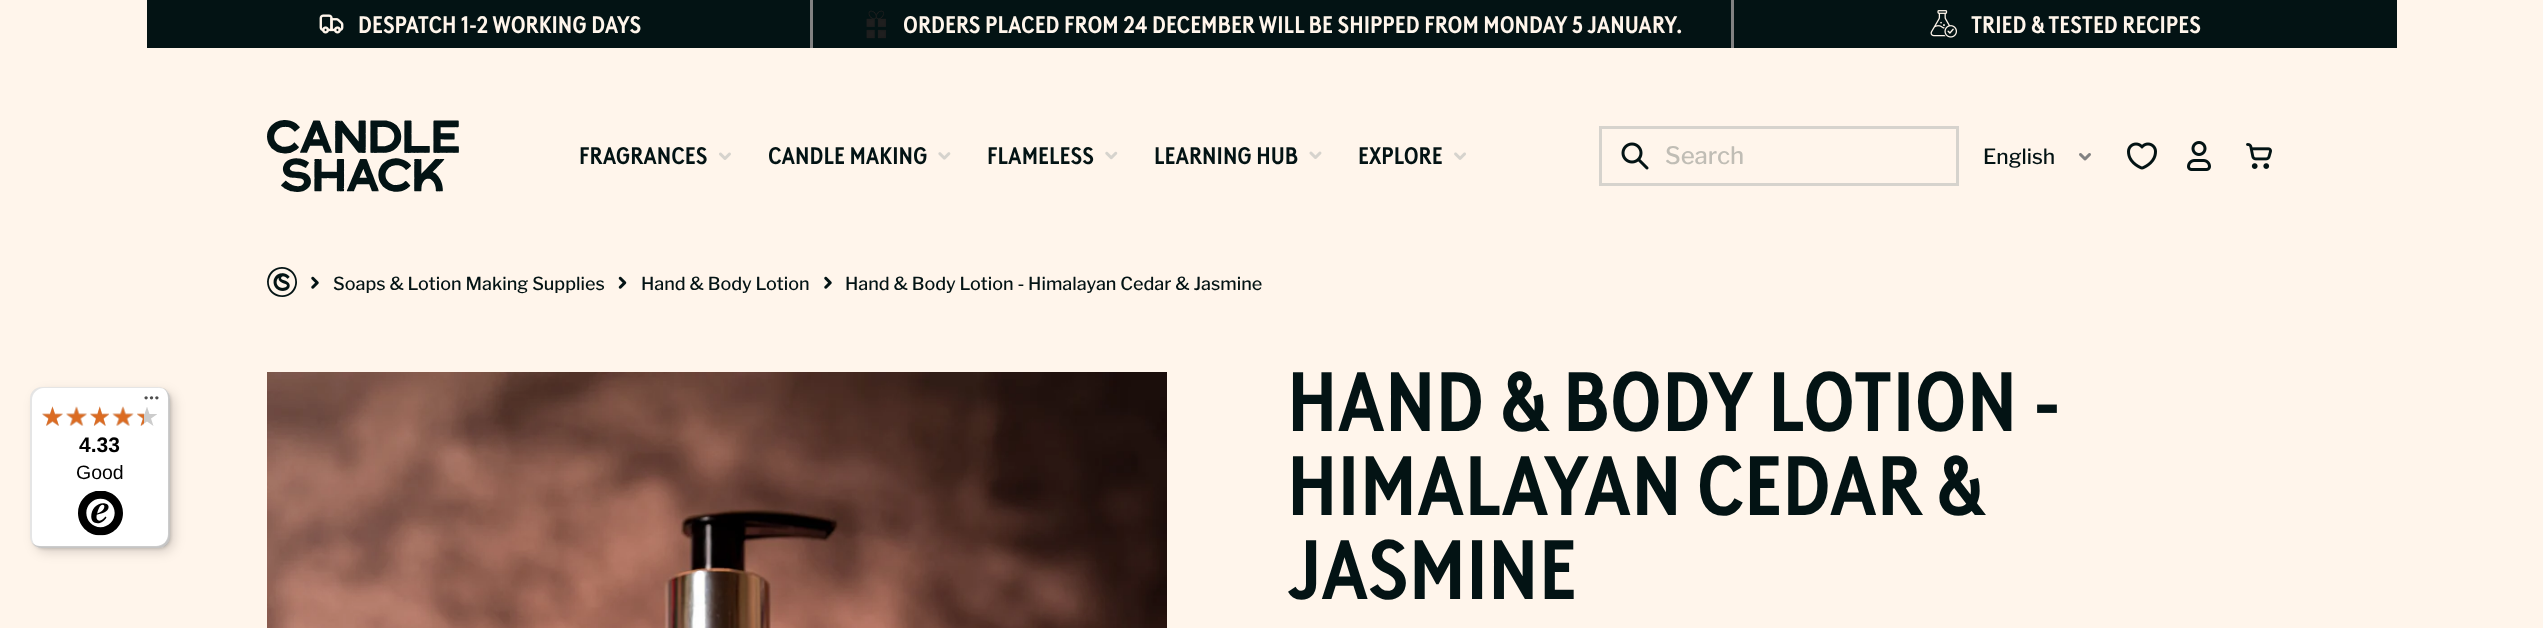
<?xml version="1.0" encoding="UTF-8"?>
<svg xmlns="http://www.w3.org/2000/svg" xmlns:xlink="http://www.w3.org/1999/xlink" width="2543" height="628">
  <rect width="100%" height="100%" fill="#fff5eb" />
  <rect x="147" width="2250" height="48" fill="#031314" />
  <rect x="810" width="3" height="48" fill="#828282" />
  <image x="319" y="14" width="25" height="20" xlink:href="image1.png" />
  <rect x="1731" width="3" height="48" fill="#828282" />
  <image x="866" y="10" width="20" height="29" xlink:href="image2.png" />
  <image x="1930" y="10" width="27" height="28" xlink:href="image3.png" />
  <image x="267" y="120" width="192" height="72" xlink:href="image4.png" />
  <image x="719" y="152" width="12" height="8" xlink:href="image5.png" />
  <image x="938" y="152" width="13" height="8" xlink:href="image6.png" />
  <image x="1105" y="151" width="13" height="9" xlink:href="image7.png" />
  <image x="1309" y="151" width="13" height="8" xlink:href="image8.png" />
  <image x="1454" y="152" width="12" height="8" xlink:href="image9.png" />
  <rect x="1600.5" y="127.5" width="357" height="57" fill="none" stroke="#d6d3cd" stroke-width="3" />
  <image x="1621" y="142" width="28" height="28" xlink:href="image10.png" />
  <image x="2079" y="153" width="12" height="8" xlink:href="image11.png" />
  <image x="2127" y="142" width="30" height="28" xlink:href="image12.png" />
  <image x="2187" y="141" width="24" height="30" xlink:href="image13.png" />
  <image x="2246" y="143" width="26" height="26" xlink:href="image14.png" />
  <rect x="35" y="392" width="139" height="160" rx="12" fill="#000000" fill-opacity="0.15" filter="blur(6px)" />
  <rect x="32" y="389" width="139" height="160" rx="12" fill="#000000" fill-opacity="0.15" filter="blur(1.5px)" />
  <rect x="30" y="387" width="140" height="161" rx="12" fill="#ffffff" />
  <path d="M 44 388 h 115 c 3 0 6 1 8 3 c -2 -2 -5 -4 -9 -4 h -116 c -7 0 -12 5 -12 12 v 137 c 0 5 3 9 7 11 c -3 -2 -5 -6 -5 -10 v -137 c 0 -6 5 -12 12 -12 z" fill="#000000" fill-opacity="0.1" />
  <path d="M 32 543 c 3 3 6 5 10 5 h 116 c 7 0 12 -5 12 -12 v -137 c 0 -5 -3 -9 -7 -11 c 3 2 5 6 5 10 v 136 c 0 7 -5 12 -12 12 h -116 c -3 0 -5 -1 -8 -3 z" fill="#000000" fill-opacity="0.2" />
  <path d="M 33 544 c 2 2 5 4 9 4 h 116 c 7 0 12 -5 12 -12 v -137 c 0 -4 -2 -7 -4 -9 c 2 2 3 5 3 8 v 137 c 0 6 -6 12 -12 12 h -116 c -3 0 -6 -1 -8 -3 z" fill="#323232" fill-opacity="0.2" />
  <path d="M 32 542 c 2 4 5 6 10 6 h 116 c 7 0 12 -5 12 -12 v -137 c 0 -5 -2 -8 -6 -10 c 3 2 5 5 5 9 v 137 c 0 6 -6 12 -12 12 h -116 c -4 0 -7 -2 -9 -5 z" fill="#ffffff" fill-opacity="0.3" />
  <image x="144" y="396" width="15" height="4" xlink:href="image15.png" />
  <image x="42" y="407" width="21" height="19" xlink:href="image21.png" />
  <image x="42" y="406" width="21" height="20" xlink:href="image16.png" />
  <image x="66" y="407" width="21" height="19" xlink:href="image22.png" />
  <image x="66" y="406" width="21" height="20" xlink:href="image17.png" />
  <image x="90" y="407" width="19" height="19" xlink:href="image23.png" />
  <image x="90" y="406" width="19" height="20" xlink:href="image18.png" />
  <image x="113" y="407" width="20" height="19" xlink:href="image24.png" />
  <image x="112" y="406" width="22" height="20" xlink:href="image19.png" />
  <image x="137" y="407" width="20" height="19" xlink:href="image25.png" />
  <image x="137" y="413" width="7" height="13" xlink:href="image20.png" />
  <image x="78" y="491" width="45" height="45" xlink:href="image26.png" />
  <image x="267" y="267" width="30" height="30" xlink:href="image27.png" />
  <image x="311" y="276" width="8" height="13" xlink:href="image28.png" />
  <image x="618" y="276" width="9" height="13" xlink:href="image29.png" />
  <image x="824" y="276" width="8" height="13" xlink:href="image28.png" />
  <image x="267" y="372" width="900" height="256" xlink:href="image30.png" />
  <text x="358" y="33" style="font-family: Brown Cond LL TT; font-size: 24px; font-weight: bold; fill: #fff5eb">DESPATCH 1-2 WORKING DAYS</text>
  <text x="903" y="33" style="font-family: Brown Cond LL TT; font-size: 24px; font-weight: bold; fill: #fff5eb">ORDERS PLACED FROM 24 DECEMBER WILL BE SHIPPED FROM MONDAY 5 JANUARY.</text>
  <text x="1971" y="33" style="font-family: Brown Cond LL TT; font-size: 24px; font-weight: bold; fill: #fff5eb">TRIED &amp; TESTED RECIPES</text>
  <text x="579" y="164" style="font-family: Brown Cond LL TT; font-size: 24px; font-weight: bold; fill: #031314">FRAGRANCES</text>
  <text x="768" y="164" style="font-family: Brown Cond LL TT; font-size: 24px; font-weight: bold; fill: #031314">CANDLE MAKING</text>
  <text x="987" y="164" style="font-family: Brown Cond LL TT; font-size: 24px; font-weight: bold; fill: #031314">FLAMELESS</text>
  <text x="1154" y="164" style="font-family: Brown Cond LL TT; font-size: 24px; font-weight: bold; fill: #031314">LEARNING HUB</text>
  <text x="1358" y="164" style="font-family: Brown Cond LL TT; font-size: 24px; font-weight: bold; fill: #031314">EXPLORE</text>
  <text x="1665" y="164" style="font-family: Libre Franklin; font-size: 24px; font-weight: 500; fill: #c0bdb5">Search</text>
  <text x="1983" y="164" style="font-family: Libre Franklin; font-size: 21px; font-weight: 500; fill: #031314">English</text>
  <text x="79" y="452" style="font-family: Liberation Sans; font-size: 21px; font-weight: bold; fill: #000000">4.33</text>
  <text x="76" y="479" style="font-family: Liberation Sans; font-size: 19.5px; fill: #000000">Good</text>
  <text x="333" y="290" style="font-family: Libre Franklin; font-size: 18px; font-weight: 500; fill: #031314">Soaps &amp; Lotion Making Supplies</text>
  <text x="641" y="290" style="font-family: Libre Franklin; font-size: 18px; font-weight: 500; fill: #031314">Hand &amp; Body Lotion</text>
  <text x="845" y="290" style="font-family: Libre Franklin; font-size: 18px; font-weight: 500; fill: #031314">Hand &amp; Body Lotion - Himalayan Cedar &amp; Jasmine</text>
  <text x="1287" y="431" style="font-family: Brown Cond LL TT; font-size: 84px; font-weight: bold; fill: #031314">HAND &amp; BODY LOTION -</text>
  <text x="1287" y="515" word-spacing="-1" style="font-family: Brown Cond LL TT; font-size: 84px; font-weight: bold; fill: #031314">HIMALAYAN CEDAR &amp;</text>
  <text x="1287" y="599" style="font-family: Brown Cond LL TT; font-size: 84px; font-weight: bold; fill: #031314">JASMINE</text>
</svg>
